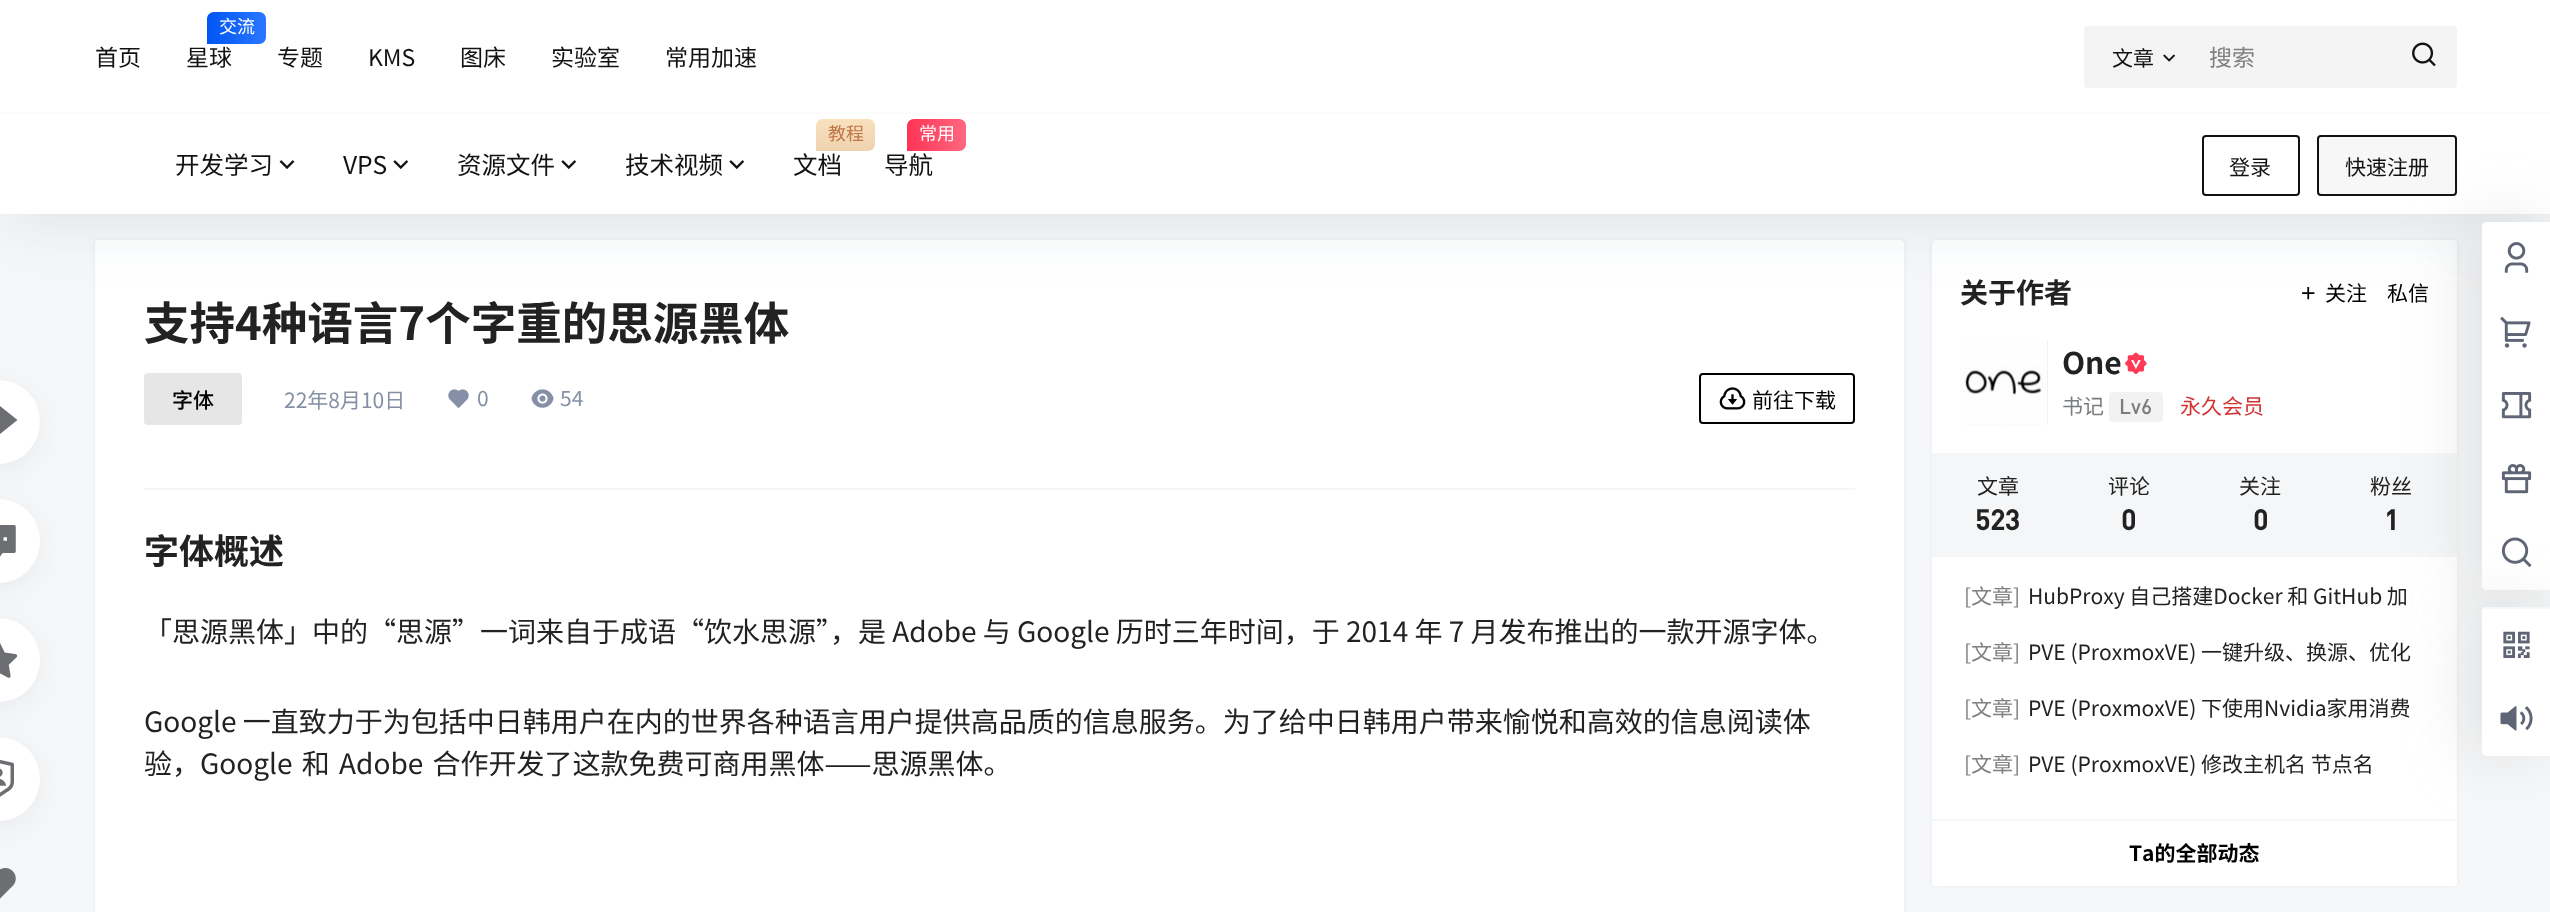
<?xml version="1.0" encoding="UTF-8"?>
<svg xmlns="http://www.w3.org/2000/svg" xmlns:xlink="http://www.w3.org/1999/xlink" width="2550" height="912">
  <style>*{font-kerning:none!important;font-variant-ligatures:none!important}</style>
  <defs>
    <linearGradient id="g1" gradientUnits="userSpaceOnUse" x1="207" y1="27" x2="266" y2="27"><stop offset="0" stop-color="#0056f3" /><stop offset="1" stop-color="#2b76ff" /></linearGradient>
    <linearGradient id="g2" gradientUnits="userSpaceOnUse" x1="845" y1="150" x2="845" y2="118"><stop offset="0" stop-color="#efd3b0" /><stop offset="1" stop-color="#f9e1be" /></linearGradient>
    <linearGradient id="g3" gradientUnits="userSpaceOnUse" x1="907" y1="134" x2="966" y2="134"><stop offset="0" stop-color="#ff3355" /><stop offset="1" stop-color="#ff6780" /></linearGradient>
  </defs>
  <rect width="100%" height="100%" fill="#f6f7f8" />
  <rect x="95" y="240" width="1809" height="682" rx="4" fill="#627c99" fill-opacity="0.1" filter="blur(2px)" />
  <rect x="95" y="240" width="1809" height="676" rx="4" fill="#ffffff" />
  <rect x="1932" y="240" width="525" height="646" rx="4" fill="#627c99" fill-opacity="0.1" filter="blur(2px)" />
  <rect x="1932" y="240" width="525" height="646" rx="4" fill="#ffffff" />
  <image x="2302" y="287" width="13" height="13" xlink:href="image12.png" />
  <rect y="9" width="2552" height="213" fill="#113a5d" fill-opacity="0.1" filter="blur(35px)" />
  <rect width="2550" height="112" fill="#ffffff" />
  <path d="M 214 12 h 45 c 4 0 7 3 7 7 v 18 c 0 4 -3 7 -7 7 h -52 v -25 c 0 -4 3 -7 7 -7 z" fill="url(#g1)" />
  <rect x="2084" y="26" width="373" height="62" rx="4" fill="#f4f4f4" />
  <image x="2163" y="54" width="13" height="8" xlink:href="image1.png" />
  <image x="2412" y="42" width="24" height="25" xlink:href="image2.png" />
  <rect y="114" width="2550" height="100" fill="#ffffff" />
  <rect y="112" width="2550" height="2" fill="#fcfcfc" />
  <image x="279" y="160" width="16" height="9" xlink:href="image3.png" />
  <image x="393" y="160" width="16" height="10" xlink:href="image4.png" />
  <image x="561" y="160" width="16" height="10" xlink:href="image4.png" />
  <image x="729" y="160" width="16" height="10" xlink:href="image4.png" />
  <path d="M 823 119 h 45 c 4 0 7 3 7 7 v 18 c 0 4 -3 7 -7 7 h -52 v -25 c 0 -4 3 -7 7 -7 z" fill="url(#g2)" />
  <path d="M 914 119 h 45 c 4 0 7 3 7 7 v 18 c 0 4 -3 7 -7 7 h -52 v -25 c 0 -4 3 -7 7 -7 z" fill="url(#g3)" />
  <rect x="2203" y="136" width="96" height="59" rx="3" fill="none" stroke="#121212" stroke-width="2" />
  <rect x="2318" y="136" width="138" height="59" rx="3" fill="#f7f7f7" stroke="#121212" stroke-width="2" />
  <rect x="-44" y="387" width="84" height="84" rx="42" fill="#0d275b" fill-opacity="0.06" filter="blur(14px)" />
  <rect x="-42" y="380" width="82" height="84" rx="42" fill="#ffffff" />
  <path d="M 0 425 c -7.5 0 -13.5 1.5 -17.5 8.5 c -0.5 -10 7 -19 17.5 -19 v -8.5 l 17.5 14 l -17.5 14 z" fill="#6c6e72" />
  <rect x="-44" y="506" width="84" height="84" rx="42" fill="#0d275b" fill-opacity="0.06" filter="blur(14px)" />
  <rect x="-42" y="499" width="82" height="84" rx="42" fill="#ffffff" />
  <image x="0" y="525" width="16" height="32" xlink:href="image5.png" />
  <rect x="-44" y="625" width="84" height="84" rx="42" fill="#0d275b" fill-opacity="0.06" filter="blur(14px)" />
  <rect x="-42" y="618" width="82" height="84" rx="42" fill="#ffffff" />
  <image x="0" y="643" width="18" height="35" xlink:href="image6.png" />
  <image x="0" y="868" width="16" height="31" xlink:href="image8.png" />
  <rect x="-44" y="744" width="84" height="84" rx="42" fill="#0d275b" fill-opacity="0.06" filter="blur(14px)" />
  <rect x="-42" y="737" width="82" height="84" rx="42" fill="#ffffff" />
  <image x="0" y="760" width="14" height="37" xlink:href="image7.png" />
  <rect x="144" y="488" width="1711" height="2" fill="#f5f6f7" />
  <rect x="144" y="373" width="98" height="52" rx="4" fill="#e6e6e6" />
  <image x="448" y="389" width="21" height="20" xlink:href="image9.png" />
  <image x="531" y="389" width="23" height="19" xlink:href="image10.png" />
  <rect x="1700" y="374" width="154" height="49" rx="3" fill="none" stroke="#000000" stroke-width="2" />
  <image x="1719" y="387" width="27" height="23" xlink:href="image11.png" />
  <rect x="1960" y="338" width="88" height="87" rx="4" fill="#eeeeee" />
  <image x="1960" y="338" width="88" height="87" xlink:href="image13.png" />
  <image x="2125" y="352" width="22" height="23" xlink:href="image14.png" />
  <rect x="2109" y="392" width="54" height="30" rx="4" fill="#f2f2f2" />
  <rect x="1932" y="453" width="525" height="104" fill="#f5f6f7" />
  <rect x="1932" y="819" width="525" height="2" fill="#f5f6f7" />
  <rect x="2468" y="222" width="70" height="368" rx="4" fill="#b5b5b5" fill-opacity="0.32" filter="blur(30.5px)" />
  <path d="M 2486 222 h 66 v 368 h -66 c -2 0 -4 -2 -4 -4 v -360 c 0 -2 2 -4 4 -4 z" fill="#ffffff" />
  <image x="2504" y="242" width="25" height="31" xlink:href="image15.png" />
  <image x="2500" y="316" width="31" height="32" xlink:href="image16.png" />
  <image x="2501" y="392" width="31" height="27" xlink:href="image17.png" />
  <image x="2501" y="464" width="31" height="30" xlink:href="image18.png" />
  <image x="2501" y="537" width="31" height="31" xlink:href="image19.png" />
  <rect x="2468" y="607" width="70" height="149" rx="4" fill="#b5b5b5" fill-opacity="0.32" filter="blur(30.5px)" />
  <path d="M 2486 607 h 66 v 149 h -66 c -2 0 -4 -2 -4 -4 v -141 c 0 -2 2 -4 4 -4 z" fill="#ffffff" />
  <rect x="2483" y="607" width="67" height="2" fill="#f5f6f7" />
  <image x="2503" y="631" width="27" height="27" xlink:href="image20.png" />
  <image x="2500" y="706" width="33" height="25" xlink:href="image21.png" />
  <text x="95" y="66" style="font-family: Noto Sans CJK SC; font-size: 23px; fill: #121212">首页</text>
  <text x="219" y="33" style="font-family: Noto Sans CJK SC; font-size: 18px; fill: #ffffff">交流</text>
  <text x="186" y="66" style="font-family: Noto Sans CJK SC; font-size: 23px; fill: #121212">星球</text>
  <text x="277" y="66" style="font-family: Noto Sans CJK SC; font-size: 23px; fill: #121212">专题</text>
  <text x="368" y="66" style="font-family: Noto Sans CJK SC; font-size: 23px; fill: #121212">KMS</text>
  <text x="460" y="66" style="font-family: Noto Sans CJK SC; font-size: 23px; fill: #121212">图床</text>
  <text x="551" y="66" style="font-family: Noto Sans CJK SC; font-size: 23px; fill: #121212">实验室</text>
  <text x="665" y="66" style="font-family: Noto Sans CJK SC; font-size: 23px; fill: #121212">常用加速</text>
  <text x="2112" y="66" style="font-family: Noto Sans CJK SC; font-size: 21px; fill: #121212">文章</text>
  <text x="2209" y="66" style="font-family: Noto Sans CJK SC; font-size: 23px; fill: #808080">搜索</text>
  <text x="175" y="174" style="font-family: Noto Sans CJK SC; font-size: 24.5px; fill: #121212">开发学习</text>
  <text x="343" y="174" style="font-family: Noto Sans CJK SC; font-size: 24.5px; fill: #121212">VPS</text>
  <text x="457" y="174" style="font-family: Noto Sans CJK SC; font-size: 24.5px; fill: #121212">资源文件</text>
  <text x="625" y="174" style="font-family: Noto Sans CJK SC; font-size: 24.5px; fill: #121212">技术视频</text>
  <text x="828" y="140" style="font-family: Noto Sans CJK SC; font-size: 18px; fill: #bf7648">教程</text>
  <text x="793" y="174" style="font-family: Noto Sans CJK SC; font-size: 24.5px; fill: #121212">文档</text>
  <text x="919" y="140" style="font-family: Noto Sans CJK SC; font-size: 18px; fill: #ffffff">常用</text>
  <text x="884" y="174" style="font-family: Noto Sans CJK SC; font-size: 24.5px; fill: #121212">导航</text>
  <text x="2229" y="175" style="font-family: Noto Sans CJK SC; font-size: 21px; fill: #121212">登录</text>
  <text x="2345" y="175" style="font-family: Noto Sans CJK SC; font-size: 21px; fill: #121212">快速注册</text>
  <text x="144" y="340" style="font-family: Noto Sans CJK SC; font-size: 45.5px; font-weight: bold; fill: #222222">支持4种语言7个字重的思源黑体</text>
  <text x="172" y="408" style="font-family: Noto Sans CJK SC; font-size: 21px; font-weight: 500; fill: #000000">字体</text>
  <text x="284" y="408" style="font-family: Noto Sans CJK SC; font-size: 21px; fill: #8590a6">22年8月10日</text>
  <text x="477" y="406" style="font-family: Noto Sans CJK SC; font-size: 21px; fill: #8590a6">0</text>
  <text x="560" y="406" style="font-family: Noto Sans CJK SC; font-size: 21px; fill: #8590a6">54</text>
  <text x="1752" y="408" style="font-family: Noto Sans CJK SC; font-size: 21px; fill: #000000">前往下载</text>
  <text x="144" y="564" style="font-family: Noto Sans CJK SC; font-size: 35px; font-weight: bold; fill: #222222">字体概述</text>
  <text x="144" y="642" style="font-family: Noto Sans CJK SC; font-size: 28px; fill: #222222">「思源黑体」中的“思源”一词来自于成语“饮水思源”，是 Adobe 与 Google 历时三年时间，于 2014 年 7 月发布推出的一款开源字体。</text>
  <text x="144" y="732" style="font-family: Noto Sans CJK SC; font-size: 28px; fill: #222222">Google 一直致力于为包括中日韩用户在内的世界各种语言用户提供高品质的信息服务。为了给中日韩用户带来愉悦和高效的信息阅读体</text>
  <text x="144" y="774" word-spacing="3" style="font-family: Noto Sans CJK SC; font-size: 28px; fill: #222222">验，Google 和 Adobe 合作开发了这款免费可商用黑体——思源黑体。</text>
  <text x="1960" y="303" style="font-family: Noto Sans CJK SC; font-size: 28px; font-weight: bold; fill: #222222">关于作者</text>
  <text x="2325" y="301" style="font-family: Noto Sans CJK SC; font-size: 21px; fill: #000000">关注</text>
  <text x="2387" y="301" style="font-family: Noto Sans CJK SC; font-size: 21px; fill: #000000">私信</text>
  <text x="2062" y="374" style="font-family: Noto Sans CJK SC; font-size: 30px; font-weight: bold; fill: #222222">One</text>
  <text x="2062" y="414" style="font-family: Noto Sans CJK SC; font-size: 21px; fill: #797c80">书记</text>
  <text x="2119" y="414" style="font-family: DIN; font-size: 21px; font-weight: 500; fill: #797c80">Lv6</text>
  <text x="2180" y="414" style="font-family: Noto Sans CJK SC; font-size: 21px; fill: #d33333">永久会员</text>
  <text x="1977" y="494" style="font-family: Noto Sans CJK SC; font-size: 21px; fill: #222222">文章</text>
  <text x="1975" y="530" style="font-family: DIN; font-size: 28px; font-weight: bold; fill: #222222">523</text>
  <text x="2108" y="494" style="font-family: Noto Sans CJK SC; font-size: 21px; fill: #222222">评论</text>
  <text x="2121" y="530" style="font-family: DIN; font-size: 28px; font-weight: bold; fill: #222222">0</text>
  <text x="2239" y="494" style="font-family: Noto Sans CJK SC; font-size: 21px; fill: #222222">关注</text>
  <text x="2253" y="530" style="font-family: DIN; font-size: 28px; font-weight: bold; fill: #222222">0</text>
  <text x="2370" y="494" style="font-family: Noto Sans CJK SC; font-size: 21px; fill: #222222">粉丝</text>
  <text x="2384" y="530" style="font-family: DIN; font-size: 28px; font-weight: bold; fill: #222222">1</text>
  <text x="1964" y="604" style="font-family: Noto Sans CJK SC; font-size: 21px; fill: #808080">[文章]</text>
  <text x="2028" y="604" style="font-family: Noto Sans CJK SC; font-size: 21px; fill: #222222">HubProxy 自己搭建Docker 和 GitHub 加</text>
  <text x="1964" y="660" style="font-family: Noto Sans CJK SC; font-size: 21px; fill: #808080">[文章]</text>
  <text x="2028" y="660" style="font-family: Noto Sans CJK SC; font-size: 21px; fill: #222222">PVE (ProxmoxVE) 一键升级、换源、优化</text>
  <text x="1964" y="716" style="font-family: Noto Sans CJK SC; font-size: 21px; fill: #808080">[文章]</text>
  <text x="2028" y="716" style="font-family: Noto Sans CJK SC; font-size: 21px; fill: #222222">PVE (ProxmoxVE) 下使用Nvidia家用消费</text>
  <text x="1964" y="772" style="font-family: Noto Sans CJK SC; font-size: 21px; fill: #808080">[文章]</text>
  <text x="2028" y="772" style="font-family: Noto Sans CJK SC; font-size: 21px; fill: #222222">PVE (ProxmoxVE) 修改主机名 节点名</text>
  <text x="2129" y="861" style="font-family: Noto Sans CJK SC; font-size: 21px; font-weight: bold; fill: #000000">Ta的全部动态</text>
</svg>
